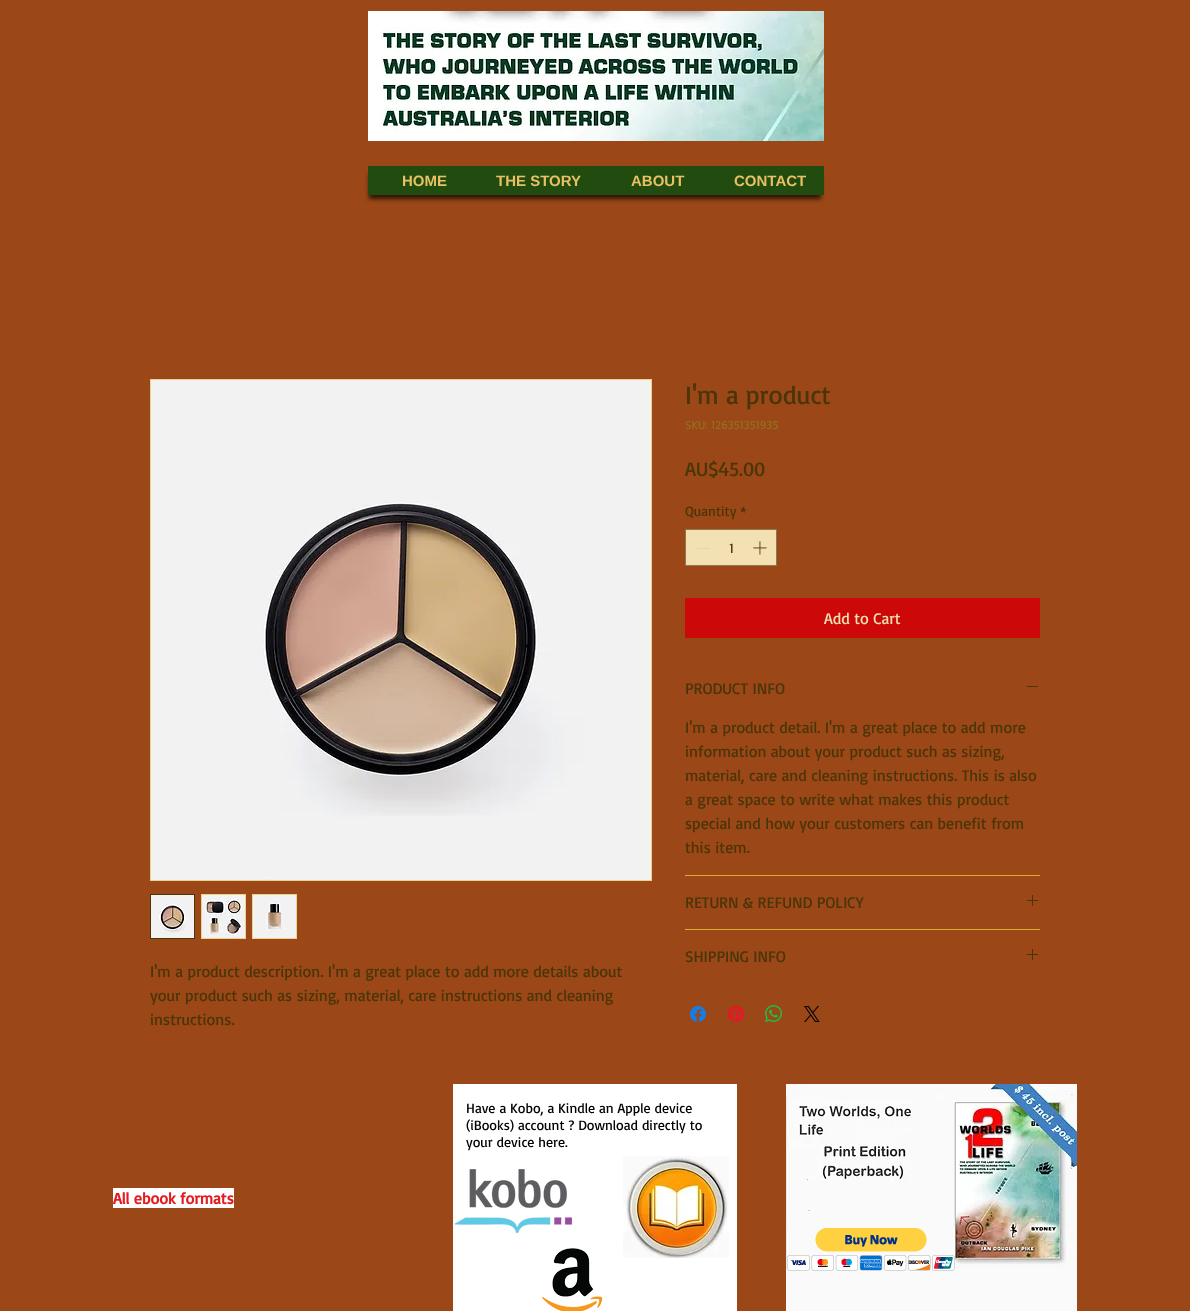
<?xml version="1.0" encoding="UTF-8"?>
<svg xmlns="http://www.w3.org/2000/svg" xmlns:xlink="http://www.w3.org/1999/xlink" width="1190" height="1311">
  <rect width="100%" height="100%" fill="#9b4717" />
  <image x="368" y="11" width="456" height="130" xlink:href="image1.png" />
  <rect x="369" y="174" width="452" height="25" fill="#000000" fill-opacity="0.7" filter="blur(2px)" />
  <rect x="368" y="166" width="456" height="29" fill="#224b0f" />
  <rect x="685.5" y="529.5" width="91" height="36" fill="#f3e0b3" stroke="#8d794c" />
  <rect x="697" y="548" width="13" height="1" fill="#ddd4bd" />
  <image x="753" y="541" width="14" height="14" xlink:href="image2.png" />
  <rect x="685" y="598" width="355" height="40" fill="#cc0808" />
  <rect x="685" y="875" width="355" height="1" fill="#dda92e" />
  <rect x="1027" y="686" width="11" height="1" fill="#493508" />
  <rect x="685" y="929" width="355" height="1" fill="#dda92e" />
  <image x="1027" y="895" width="11" height="11" xlink:href="image3.png" />
  <image x="1027" y="949" width="11" height="11" xlink:href="image3.png" />
  <image x="690" y="1006" width="16" height="16" xlink:href="image4.png" />
  <image x="728" y="1006" width="16" height="16" xlink:href="image5.png" />
  <image x="765" y="1005" width="17" height="17" xlink:href="image6.png" />
  <image x="804" y="1006" width="16" height="16" xlink:href="image7.png" />
  <rect x="150.5" y="379.5" width="501" height="501" fill="none" stroke="#ead38d" />
  <image x="151" y="380" width="500" height="500" xlink:href="image8.png" />
  <rect x="150.5" y="894.5" width="44" height="44" fill="none" stroke="#493508" />
  <image x="151" y="895" width="43" height="43" xlink:href="image9.png" />
  <rect x="201" y="894" width="45" height="45" fill="#ead38d" />
  <image x="202" y="895" width="43" height="43" xlink:href="image10.png" />
  <rect x="252" y="894" width="45" height="45" fill="#ead38d" />
  <image x="253" y="895" width="43" height="43" xlink:href="image11.png" />
  <rect x="453" y="1084" width="284" height="227" fill="#ffffff" />
  <image x="454" y="1169" width="118" height="64" xlink:href="image12.png" />
  <image x="623" y="1156" width="106" height="102" xlink:href="image13.png" />
  <image x="542" y="1248" width="61" height="63" xlink:href="image14.png" />
  <image x="786" y="1084" width="291" height="227" xlink:href="image15.png" />
  <rect x="113" y="1188" width="121" height="20" fill="#ffffff" />
  <image x="787" y="1228" width="168" height="43" xlink:href="image16.png" />
  <text x="402" y="186" style="font-family: Liberation Sans; font-size: 15px; font-weight: bold; fill: #e8c164">HOME</text>
  <text x="496" y="186" style="font-family: Liberation Sans; font-size: 15px; font-weight: bold; fill: #e8c164">THE STORY</text>
  <text x="631" y="186" style="font-family: Liberation Sans; font-size: 15px; font-weight: bold; fill: #e8c164">ABOUT</text>
  <text x="734" y="186" style="font-family: Liberation Sans; font-size: 15px; font-weight: bold; fill: #e8c164">CONTACT</text>
  <text x="685" y="404" style="font-family: Basic; font-size: 26px; fill: #493508">I'm a product</text>
  <text x="685" y="429" style="font-family: Basic; font-size: 12px; fill: #93701f">SKU: 126351351935</text>
  <text x="685" y="476" style="font-family: Basic; font-size: 20px; fill: #493508">AU$45.00</text>
  <text x="685" y="516" style="font-family: Basic; font-size: 14px; fill: #493508">Quantity *</text>
  <text x="729" y="553" style="font-family: Basic; font-size: 14px; fill: #493508">1</text>
  <text x="824" y="624" style="font-family: Basic; font-size: 16px; fill: #f3e0b3">Add to Cart</text>
  <text x="685" y="694" style="font-family: Basic; font-size: 16px; fill: #493508">PRODUCT INFO</text>
  <text x="685" y="733" style="font-family: Basic; font-size: 16px; fill: #493508">I'm a product detail. I'm a great place to add more</text>
  <text x="685" y="757" style="font-family: Basic; font-size: 16px; fill: #493508">information about your product such as sizing,</text>
  <text x="685" y="781" style="font-family: Basic; font-size: 16px; fill: #493508">material, care and cleaning instructions. This is also</text>
  <text x="685" y="805" style="font-family: Basic; font-size: 16px; fill: #493508">a great space to write what makes this product</text>
  <text x="685" y="829" style="font-family: Basic; font-size: 16px; fill: #493508">special and how your customers can benefit from</text>
  <text x="685" y="853" style="font-family: Basic; font-size: 16px; fill: #493508">this item.</text>
  <text x="685" y="908" style="font-family: Basic; font-size: 16px; fill: #493508">RETURN &amp; REFUND POLICY</text>
  <text x="685" y="962" style="font-family: Basic; font-size: 16px; fill: #493508">SHIPPING INFO</text>
  <text x="150" y="977" style="font-family: Basic; font-size: 16px; fill: #493508">I'm a product description. I'm a great place to add more details about</text>
  <text x="150" y="1001" style="font-family: Basic; font-size: 16px; fill: #493508">your product such as sizing, material, care instructions and cleaning</text>
  <text x="150" y="1025" style="font-family: Basic; font-size: 16px; fill: #493508">instructions.</text>
  <text x="466" y="1113" style="font-family: Basic; font-size: 14px; fill: #000000">Have a Kobo, a Kindle an Apple device</text>
  <text x="466" y="1130" style="font-family: Basic; font-size: 14px; fill: #000000">(iBooks) account ? Download directly to</text>
  <text x="466" y="1147" style="font-family: Basic; font-size: 14px; fill: #000000">your device here.</text>
  <text x="113" y="1204" style="font-family: Basic; font-size: 16px; font-weight: bold; fill: #e21c21">All ebook formats</text>
</svg>
